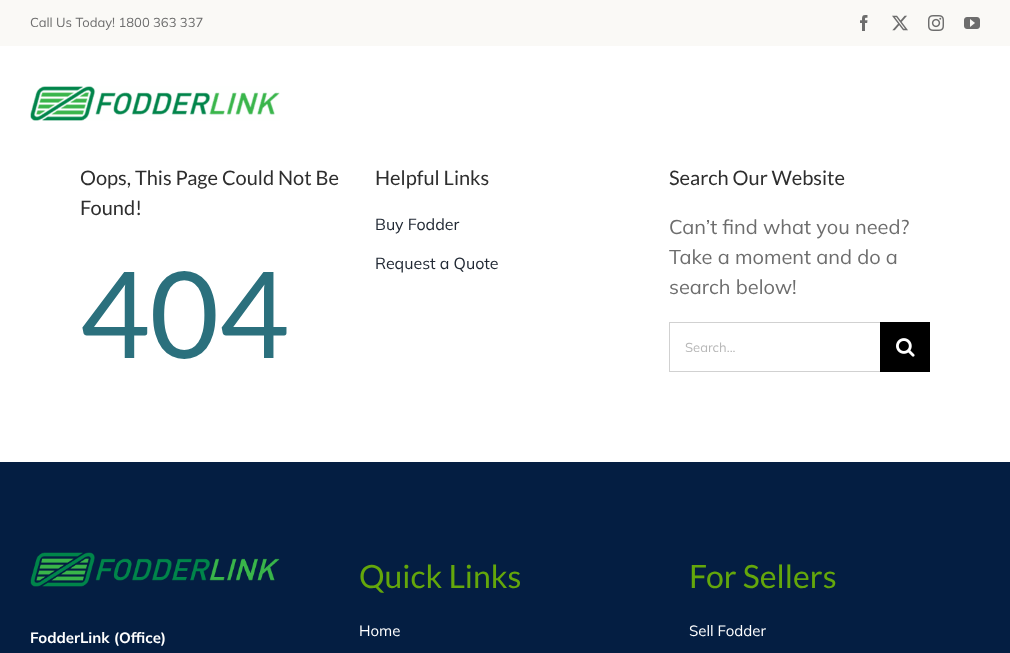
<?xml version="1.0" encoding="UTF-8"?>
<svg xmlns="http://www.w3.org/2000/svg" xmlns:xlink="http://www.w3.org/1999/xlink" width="1010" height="653">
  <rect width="100%" height="100%" fill="#ffffff" />
  <rect width="1010" height="46" fill="#faf9f6" />
  <image x="860" y="15" width="8" height="16" xlink:href="image1.png" />
  <image x="892" y="15" width="16" height="16" xlink:href="image2.png" />
  <image x="928" y="15" width="16" height="16" xlink:href="image3.png" />
  <image x="964" y="17" width="16" height="12" xlink:href="image4.png" />
  <image x="30" y="86" width="250" height="35" xlink:href="image5.png" />
  <rect x="669" y="322" width="211" height="1" fill="#d1d1d1" />
  <rect x="669" y="371" width="211" height="1" fill="#d1d1d1" />
  <rect x="669" y="322" width="1" height="50" fill="#d1d1d1" />
  <rect x="880" y="322" width="50" height="50" fill="#000000" />
  <image x="896" y="338" width="19" height="19" xlink:href="image6.png" />
  <rect y="462" width="1010" height="191" fill="#041e42" />
  <image x="30" y="552" width="250" height="35" xlink:href="image7.png" />
  <text x="30" y="27" style="font-family: Mulish; font-size: 13px; fill: #6d6d6d">Call Us Today! 1800 363 337</text>
  <text x="80" y="185" style="font-family: Lato; font-size: 20px; fill: #2e2e2e">Oops, This Page Could Not Be</text>
  <text x="80" y="215" style="font-family: Lato; font-size: 20px; fill: #2e2e2e">Found!</text>
  <text x="80" y="358" style="font-family: Lato; font-size: 120px; fill: #2b707d">404</text>
  <text x="375" y="185" style="font-family: Lato; font-size: 20px; fill: #2e2e2e">Helpful Links</text>
  <text x="375" y="230" style="font-family: Mulish; font-size: 16px; fill: #212934">Buy Fodder</text>
  <text x="375" y="269" style="font-family: Mulish; font-size: 16px; fill: #212934">Request a Quote</text>
  <text x="669" y="185" style="font-family: Lato; font-size: 20px; fill: #2e2e2e">Search Our Website</text>
  <text x="669" y="234" style="font-family: Mulish; font-size: 20px; fill: #6d6d6d">Can’t find what you need?</text>
  <text x="669" y="264" style="font-family: Mulish; font-size: 20px; fill: #6d6d6d">Take a moment and do a</text>
  <text x="669" y="294" style="font-family: Mulish; font-size: 20px; fill: #6d6d6d">search below!</text>
  <text x="685" y="352" style="font-family: Mulish; font-size: 13px; fill: #b7b7b7">Search...</text>
  <text x="359" y="588" style="font-family: Lato; font-size: 32px; fill: #64a70b">Quick Links</text>
  <text x="359" y="636" style="font-family: Mulish; font-size: 15px; fill: #ffffff">Home</text>
  <text x="689" y="588" style="font-family: Lato; font-size: 32px; fill: #64a70b">For Sellers</text>
  <text x="689" y="636" style="font-family: Mulish; font-size: 15px; fill: #ffffff">Sell Fodder</text>
  <text x="30" y="643" style="font-family: Mulish; font-size: 15px; font-weight: bold; fill: #ffffff">FodderLink (Office)</text>
</svg>
